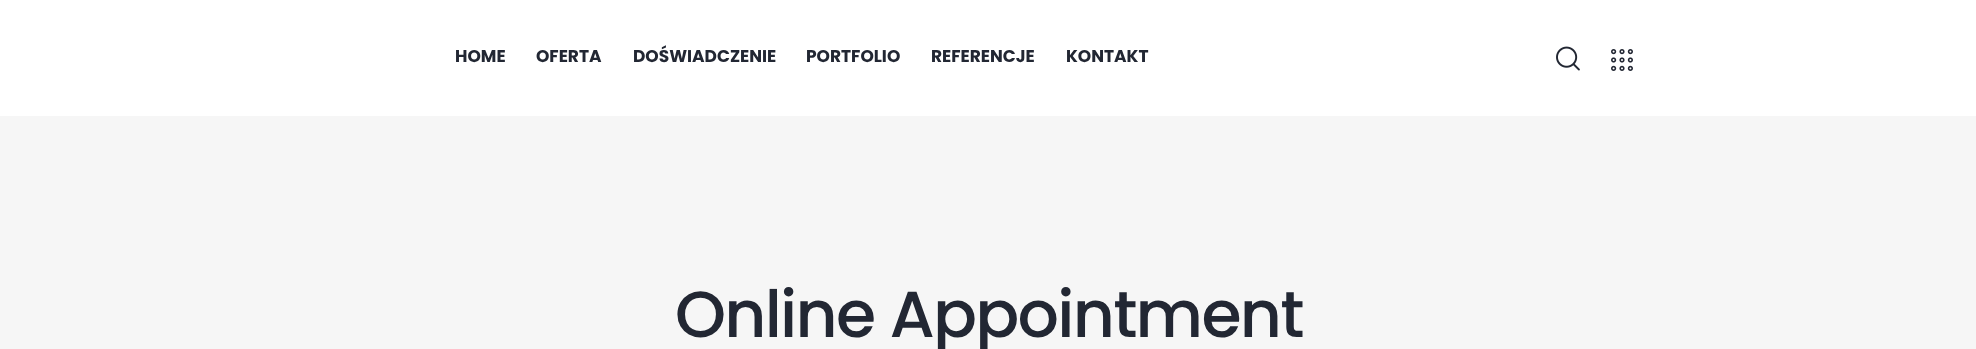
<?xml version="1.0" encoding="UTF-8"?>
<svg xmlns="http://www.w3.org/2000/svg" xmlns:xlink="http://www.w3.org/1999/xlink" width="1976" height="349">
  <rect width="100%" height="100%" fill="#f6f6f6" />
  <rect width="1976" height="116" fill="#ffffff" />
  <image x="1556" y="46" width="24" height="25" xlink:href="image1.png" />
  <image x="1611" y="49" width="22" height="22" xlink:href="image2.png" />
  <text x="455" y="62" style="font-family: Poppins; font-size: 17px; font-weight: bold; fill: #222733">HOME</text>
  <text x="536" y="62" style="font-family: Poppins; font-size: 17px; font-weight: bold; fill: #222733">OFERTA</text>
  <text x="633" y="62" style="font-family: Poppins; font-size: 17px; font-weight: bold; fill: #222733">DOŚWIADCZENIE</text>
  <text x="806" y="62" style="font-family: Poppins; font-size: 17px; font-weight: bold; fill: #222733">PORTFOLIO</text>
  <text x="931" y="62" style="font-family: Poppins; font-size: 17px; font-weight: bold; fill: #222733">REFERENCJE</text>
  <text x="1066" y="62" style="font-family: Poppins; font-size: 17px; font-weight: bold; fill: #222733">KONTAKT</text>
  <text x="675" y="337" style="font-family: Poppins; font-size: 65px; font-weight: 500; letter-spacing: -1.75px; fill: #222733">Online Appointment</text>
</svg>
